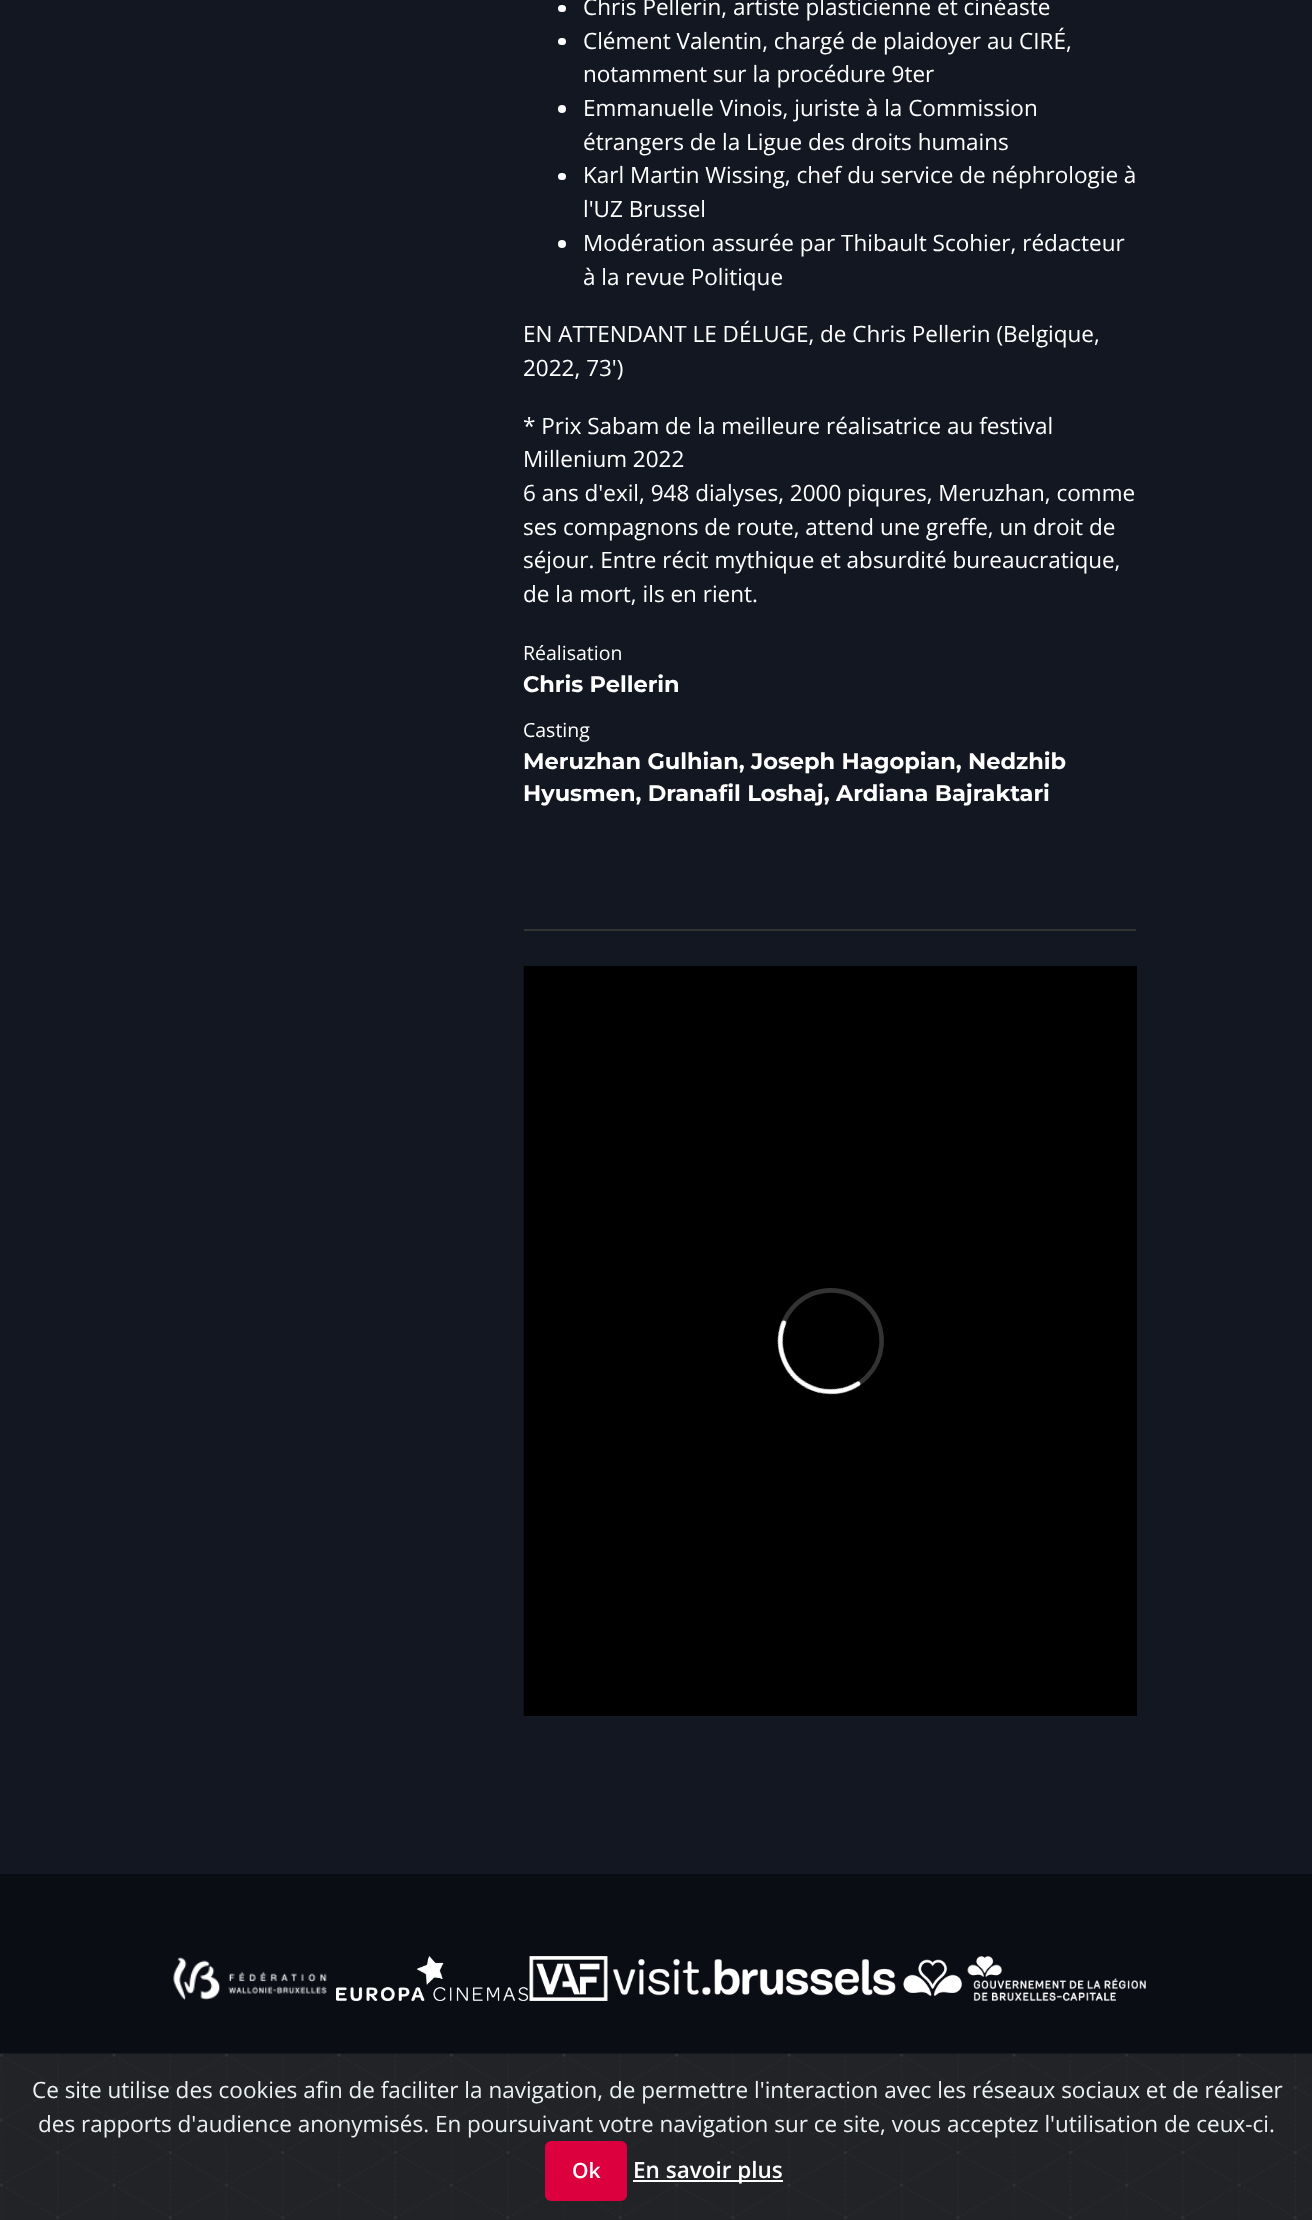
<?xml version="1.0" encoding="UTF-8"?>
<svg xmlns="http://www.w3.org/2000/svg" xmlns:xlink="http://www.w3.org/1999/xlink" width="1312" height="2220">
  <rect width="100%" height="100%" fill="#131722" />
  <rect x="524" y="929" width="612" height="2" fill="#333333" />
  <rect x="558" y="5" width="8" height="7" rx="3.5" fill="#ffffff" />
  <rect x="558" y="38" width="8" height="7" rx="3.5" fill="#ffffff" />
  <circle cx="562" cy="109" r="4" fill="#ffffff" />
  <rect x="558" y="173" width="8" height="7" rx="3.5" fill="#ffffff" />
  <circle cx="562" cy="244" r="4" fill="#ffffff" />
  <image x="523" y="966" width="614" height="750" xlink:href="image1.png" />
  <rect y="1874" width="1312" height="180" fill="#0a0d14" />
  <image x="173" y="1957" width="154" height="43" xlink:href="image2.png" />
  <image x="336" y="1956" width="192" height="45" xlink:href="image3.png" />
  <image x="529" y="1956" width="79" height="45" xlink:href="image4.png" />
  <image x="613" y="1959" width="349" height="37" xlink:href="image5.png" />
  <image x="967" y="1956" width="179" height="45" xlink:href="image6.png" />
  <image x="0" y="2053" width="1312" height="167" xlink:href="image7.png" />
  <rect x="546" y="2142" width="80" height="58" rx="5" fill="#dd003f" stroke="#dd003f" stroke-width="2" />
  <rect x="633" y="2180" width="150" height="2" fill="#ffffff" />
  <text x="583" y="15" style="font-family: Open Sans; font-size: 22.5px; fill: #ffffff">Chris Pellerin, artiste plasticienne et cinéaste</text>
  <text x="583" y="49" style="font-family: Open Sans; font-size: 22.5px; fill: #ffffff">Clément Valentin, chargé de plaidoyer au CIRÉ,</text>
  <text x="583" y="82" style="font-family: Open Sans; font-size: 22.5px; fill: #ffffff">notamment sur la procédure 9ter</text>
  <text x="583" y="116" style="font-family: Open Sans; font-size: 22.5px; fill: #ffffff">Emmanuelle Vinois, juriste à la Commission</text>
  <text x="583" y="150" style="font-family: Open Sans; font-size: 22.5px; fill: #ffffff">étrangers de la Ligue des droits humains</text>
  <text x="583" y="183" style="font-family: Open Sans; font-size: 22.5px; fill: #ffffff">Karl Martin Wissing, chef du service de néphrologie à</text>
  <text x="583" y="217" style="font-family: Open Sans; font-size: 22.5px; fill: #ffffff">l'UZ Brussel</text>
  <text x="583" y="251" style="font-family: Open Sans; font-size: 22.5px; fill: #ffffff">Modération assurée par Thibault Scohier, rédacteur</text>
  <text x="583" y="285" style="font-family: Open Sans; font-size: 22.5px; fill: #ffffff">à la revue Politique</text>
  <text x="523" y="342" style="font-family: Open Sans; font-size: 22.5px; fill: #ffffff">EN ATTENDANT LE DÉLUGE, de Chris Pellerin (Belgique,</text>
  <text x="523" y="376" style="font-family: Open Sans; font-size: 22.5px; fill: #ffffff">2022, 73')</text>
  <text x="523" y="434" style="font-family: Open Sans; font-size: 22.5px; fill: #ffffff">* Prix Sabam de la meilleure réalisatrice au festival</text>
  <text x="523" y="467" style="font-family: Open Sans; font-size: 22.5px; fill: #ffffff">Millenium 2022</text>
  <text x="523" y="501" style="font-family: Open Sans; font-size: 22.5px; fill: #ffffff">6 ans d'exil, 948 dialyses, 2000 piqures, Meruzhan, comme</text>
  <text x="523" y="535" style="font-family: Open Sans; font-size: 22.5px; fill: #ffffff">ses compagnons de route, attend une greffe, un droit de</text>
  <text x="523" y="568" style="font-family: Open Sans; font-size: 22.5px; fill: #ffffff">séjour. Entre récit mythique et absurdité bureaucratique,</text>
  <text x="523" y="602" style="font-family: Open Sans; font-size: 22.5px; fill: #ffffff">de la mort, ils en rient.</text>
  <text x="523" y="660" style="font-family: Open Sans; font-size: 19.5px; fill: #ffffff">Réalisation</text>
  <text x="523" y="692" style="font-family: Montserrat; font-size: 22.5px; font-weight: bold; fill: #ffffff">Chris Pellerin</text>
  <text x="523" y="737" style="font-family: Open Sans; font-size: 19.5px; fill: #ffffff">Casting</text>
  <text x="523" y="769" style="font-family: Montserrat; font-size: 22.5px; font-weight: bold; fill: #ffffff">Meruzhan Gulhian, Joseph Hagopian, Nedzhib</text>
  <text x="523" y="801" style="font-family: Montserrat; font-size: 22.5px; font-weight: bold; fill: #ffffff">Hyusmen, Dranafil Loshaj, Ardiana Bajraktari</text>
  <text x="32" y="2098" style="font-family: Open Sans; font-size: 22.5px; fill: #ecf0f1">Ce site utilise des cookies afin de faciliter la navigation, de permettre l'interaction avec les réseaux sociaux et de réaliser</text>
  <text x="38" y="2132" style="font-family: Open Sans; font-size: 22.5px; fill: #ecf0f1">des rapports d'audience anonymisés. En poursuivant votre navigation sur ce site, vous acceptez l'utilisation de ceux-ci.</text>
  <text x="572" y="2178" style="font-family: Open Sans; font-size: 21px; font-weight: 600; fill: #ffffff">Ok</text>
  <text x="633" y="2178" style="font-family: Open Sans; font-size: 22.5px; font-weight: 600; fill: #ffffff">En savoir plus</text>
</svg>
